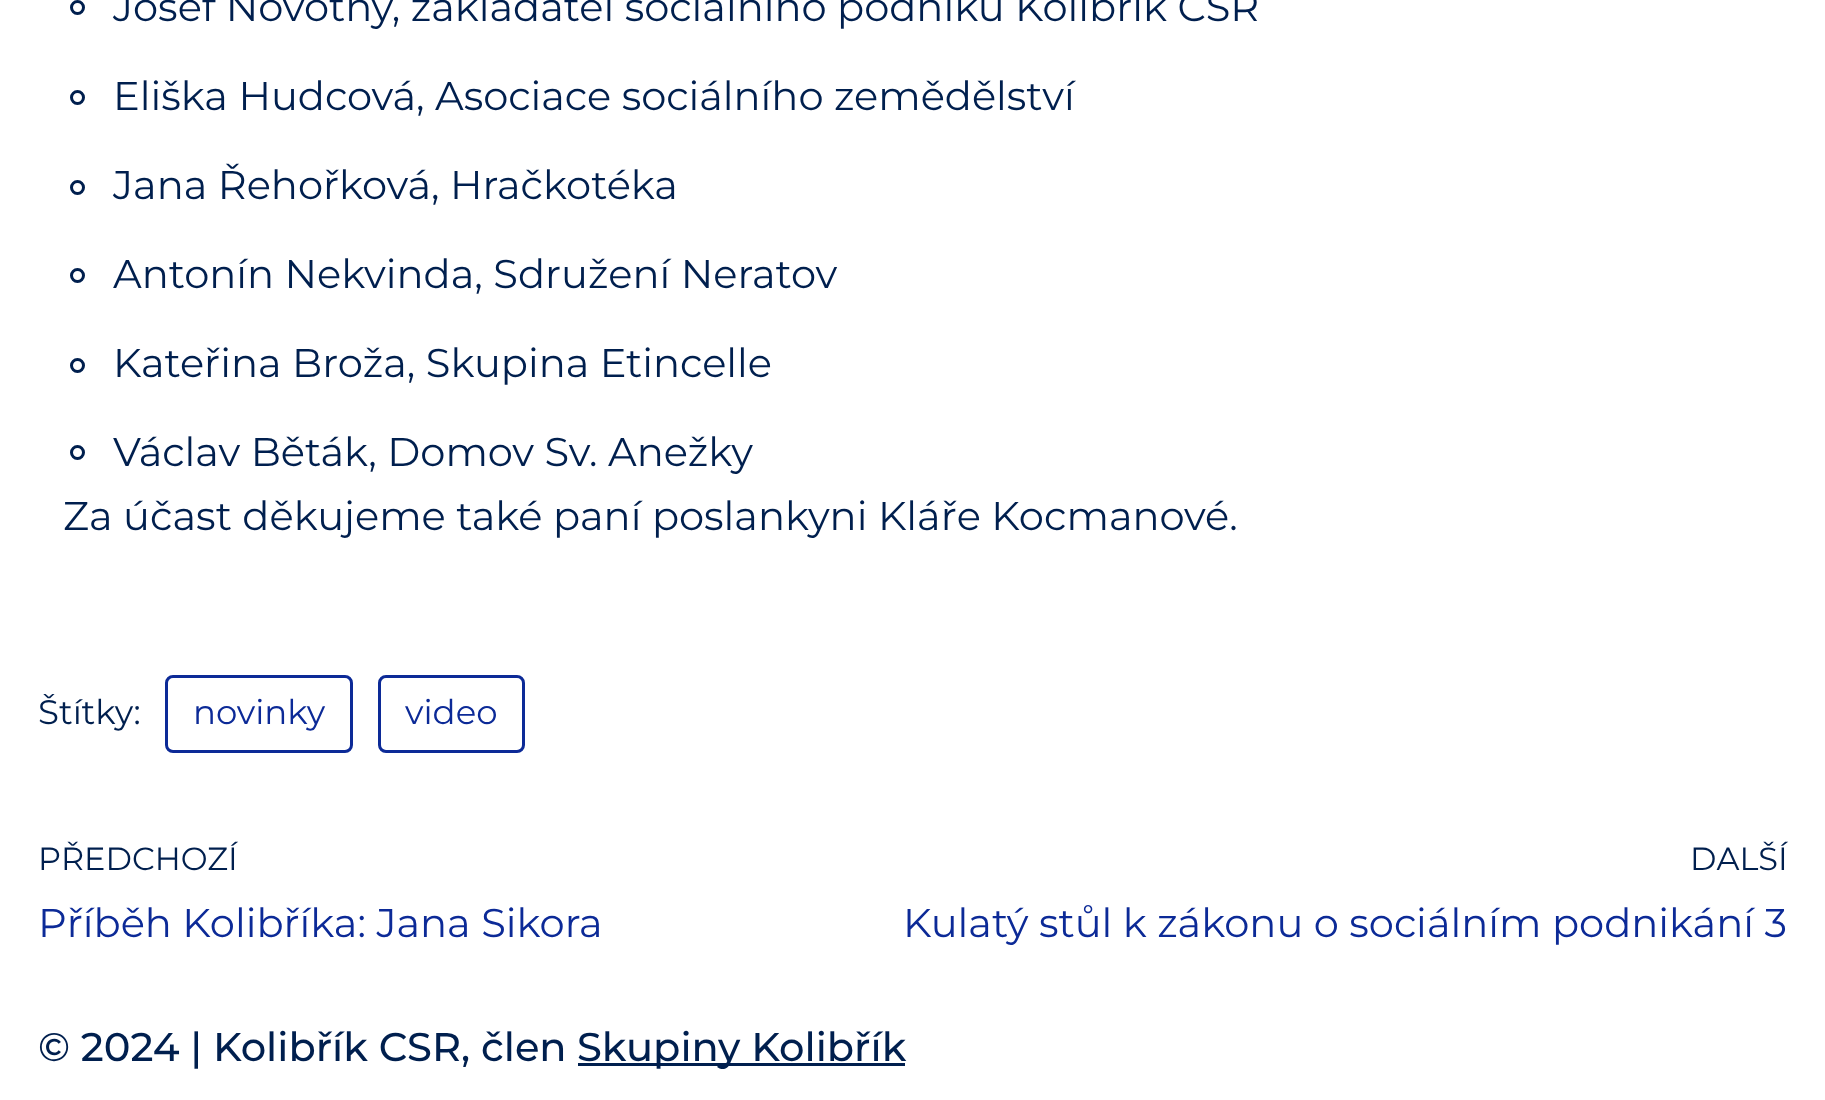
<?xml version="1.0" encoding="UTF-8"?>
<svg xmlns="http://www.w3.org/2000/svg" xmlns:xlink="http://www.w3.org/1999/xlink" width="1825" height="1100">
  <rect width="100%" height="100%" fill="#ffffff" />
  <circle cx="77.5" cy="7.5" r="6" fill="none" stroke="#001f4e" stroke-width="3" />
  <circle cx="77.5" cy="97.5" r="6" fill="none" stroke="#001f4e" stroke-width="3" />
  <circle cx="77.5" cy="187.5" r="6" fill="none" stroke="#001f4e" stroke-width="3" />
  <circle cx="77.5" cy="275.5" r="6" fill="none" stroke="#001f4e" stroke-width="3" />
  <circle cx="77.5" cy="365.5" r="6" fill="none" stroke="#001f4e" stroke-width="3" />
  <circle cx="77.5" cy="452.5" r="6" fill="none" stroke="#001f4e" stroke-width="3" />
  <rect x="166.5" y="676.5" width="185" height="75" rx="6.5" fill="none" stroke="#0c2a97" stroke-width="3" />
  <rect x="379.5" y="676.5" width="144" height="75" rx="6.5" fill="none" stroke="#0c2a97" stroke-width="3" />
  <rect x="578" y="1063" width="327" height="3" fill="#001f4e" />
  <text x="113" y="21" style="font-family: Montserrat; font-size: 40px; fill: #001f4e">Josef Novotný, zakladatel sociálního podniku Kolibřík CSR</text>
  <text x="113" y="110" style="font-family: Montserrat; font-size: 40px; fill: #001f4e">Eliška Hudcová, Asociace sociálního zemědělství</text>
  <text x="113" y="199" style="font-family: Montserrat; font-size: 40px; fill: #001f4e">Jana Řehořková, Hračkotéka</text>
  <text x="113" y="288" style="font-family: Montserrat; font-size: 40px; fill: #001f4e">Antonín Nekvinda, Sdružení Neratov</text>
  <text x="113" y="377" style="font-family: Montserrat; font-size: 40px; fill: #001f4e">Kateřina Broža, Skupina Etincelle</text>
  <text x="113" y="466" style="font-family: Montserrat; font-size: 40px; fill: #001f4e">Václav Běták, Domov Sv. Anežky</text>
  <text x="63" y="530" style="font-family: Montserrat; font-size: 40px; fill: #001f4e">Za účast děkujeme také paní poslankyni Kláře Kocmanové.</text>
  <text x="38" y="724" style="font-family: Montserrat; font-size: 34px; fill: #001f4e">Štítky:</text>
  <text x="193" y="724" style="font-family: Montserrat; font-size: 34px; fill: #0c2a97">novinky</text>
  <text x="405" y="724" style="font-family: Montserrat; font-size: 34px; fill: #0c2a97">video</text>
  <text x="38" y="870" style="font-family: Montserrat; font-size: 32px; fill: #001f4e">PŘEDCHOZÍ</text>
  <text x="38" y="937" style="font-family: Montserrat; font-size: 40px; fill: #0c2a97">Příběh Kolibříka: Jana Sikora</text>
  <text x="1690" y="870" style="font-family: Montserrat; font-size: 32px; fill: #001f4e">DALŠÍ</text>
  <text x="903" y="937" style="font-family: Montserrat; font-size: 40px; fill: #0c2a97">Kulatý stůl k zákonu o sociálním podnikání 3</text>
  <text x="38" y="1061" style="font-family: Montserrat; font-size: 40px; font-weight: 500; fill: #001f4e">© 2024 | Kolibřík CSR, člen</text>
  <text x="577" y="1061" style="font-family: Montserrat; font-size: 40px; font-weight: 500; fill: #001f4e">Skupiny Kolibřík</text>
</svg>
